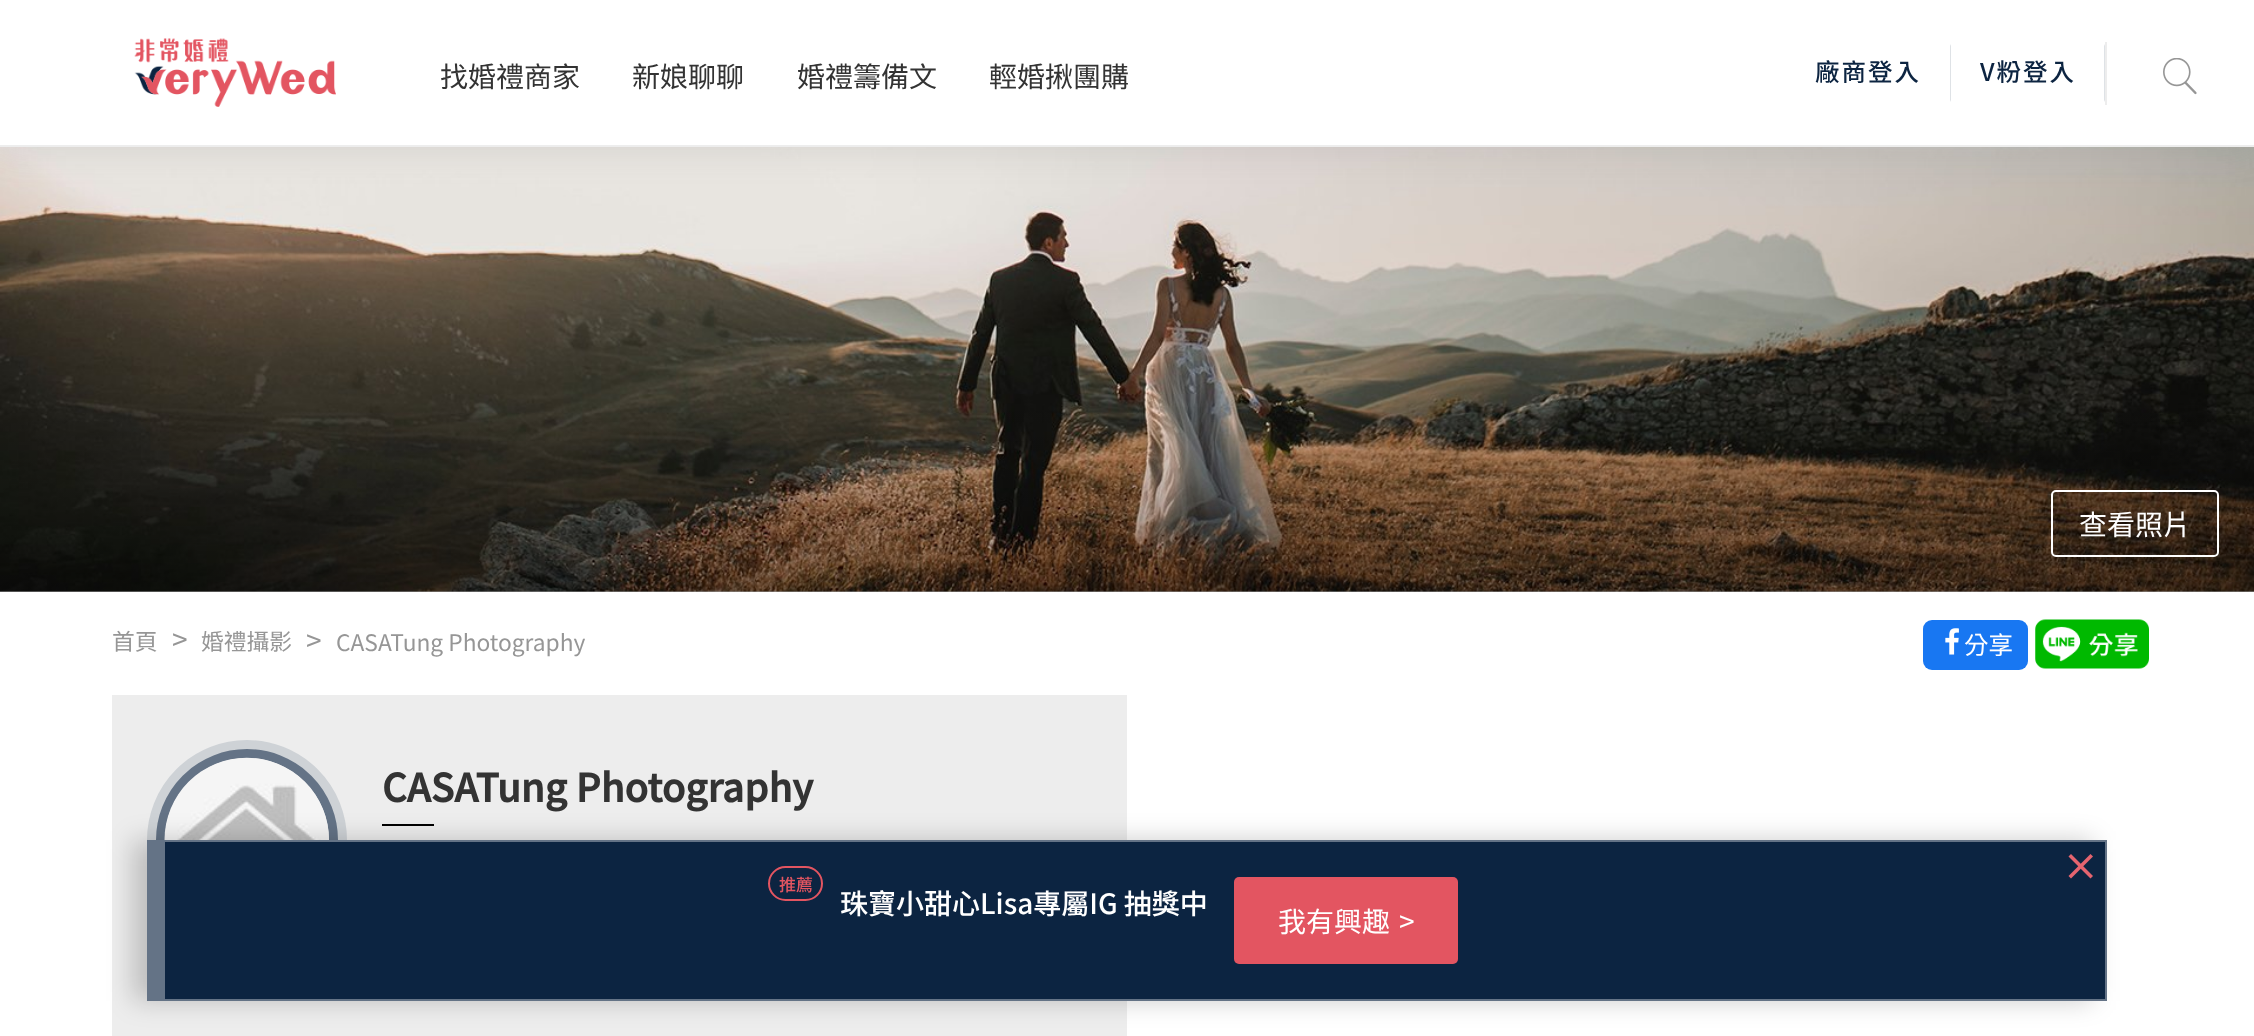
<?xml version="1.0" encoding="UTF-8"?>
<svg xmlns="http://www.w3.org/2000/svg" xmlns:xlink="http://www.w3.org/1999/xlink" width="2254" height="1036">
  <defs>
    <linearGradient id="g1" gradientUnits="userSpaceOnUse" x1="1127" y1="388" x2="1127" y2="592"><stop offset="0.03" stop-color="#e6e6e6" stop-opacity="0" /><stop offset="0.04" stop-color="#000000" stop-opacity="0" /><stop offset="1" stop-color="#000000" stop-opacity="0.4" /></linearGradient>
  </defs>
  <rect width="100%" height="100%" fill="#ffffff" />
  <image x="0" y="147" width="2254" height="445" xlink:href="image3.png" />
  <rect width="2254" height="147" fill="#7d7d7d" fill-opacity="0.2" filter="blur(17.5px)" />
  <rect width="2254" height="145" fill="#ffffff" />
  <rect y="145" width="2254" height="2" fill="#ededed" />
  <image x="134" y="38" width="202" height="69" xlink:href="image1.png" />
  <path d="M 1951 44 v 58 l -1 -2 v -54 z" fill="#dee2e6" />
  <path d="M 2105 44 v 58 l -1 -2 v -54 z" fill="#dee2e6" />
  <rect x="2105" y="42" width="2" height="63" fill="#ededed" />
  <image x="2163" y="58" width="34" height="37" xlink:href="image2.png" />
  <rect y="407" width="2254" height="185" fill="url(#g1)" />
  <rect x="2052" y="491" width="166" height="65" rx="4" fill="none" stroke="#ffffff" stroke-width="2" />
  <rect x="1923" y="620" width="105" height="50" rx="9" fill="#1877f2" />
  <image x="1945" y="628" width="14" height="27" xlink:href="image4.png" />
  <image x="2035" y="619" width="114" height="50" xlink:href="image5.png" />
  <rect x="112" y="695" width="1015" height="341" fill="#ededed" />
  <circle cx="247" cy="840" r="91" fill="none" stroke="#ced2d6" stroke-width="18" />
  <circle cx="247" cy="840" r="86.5" fill="none" stroke="#647386" stroke-width="9" />
  <image x="164" y="757" width="165" height="83" xlink:href="image6.png" />
  <rect x="382" y="824" width="52" height="2" fill="#000000" />
  <rect x="133" y="840" width="1960" height="161" fill="#000000" fill-opacity="0.2" filter="blur(13px)" />
  <rect x="165" y="842" width="1940" height="157" fill="#0c2441" />
  <rect x="165" y="840" width="1942" height="2" fill="#647386" />
  <rect x="2105" y="840" width="2" height="161" fill="#647386" />
  <rect x="165" y="999" width="1942" height="2" fill="#647386" />
  <rect x="147" y="840" width="18" height="161" fill="#647386" />
  <path d="M 2090.5 854 l 2.5 2.5 l -22 22 l -2.5 -2.5 z" fill="#e5646f" />
  <path d="M 2068.5 856.5 l 2.5 -2.5 l 22 22 l -2.5 2.5 z" fill="#e5646f" />
  <rect x="769" y="867" width="53" height="33" rx="16.5" fill="none" stroke="#e35561" stroke-width="2" />
  <rect x="1234" y="877" width="224" height="87" rx="5" fill="#e35561" />
  <text x="440" y="87" style="font-family: Noto Sans TC; font-size: 28px; fill: #333333">找婚禮商家</text>
  <text x="632" y="87" style="font-family: Noto Sans TC; font-size: 28px; fill: #333333">新娘聊聊</text>
  <text x="797" y="87" style="font-family: Noto Sans TC; font-size: 28px; fill: #333333">婚禮籌備文</text>
  <text x="989" y="87" style="font-family: Noto Sans TC; font-size: 28px; fill: #333333">輕婚揪團購</text>
  <text x="1815" y="81" style="font-family: Noto Sans TC; font-size: 24.5px; font-weight: 500; letter-spacing: 2px; fill: #0c2441">廠商登入</text>
  <text x="1980" y="81" style="font-family: Noto Sans TC; font-size: 24.5px; font-weight: 500; letter-spacing: 2px; fill: #0c2441">V粉登入</text>
  <text x="2079" y="535" style="font-family: Noto Sans TC; font-size: 28px; fill: #ffffff">查看照片</text>
  <text x="112" y="650" style="font-family: Noto Sans TC; font-size: 22.75px; fill: #969696">首頁</text>
  <text x="172" y="650" style="font-family: Noto Sans TC; font-size: 28px; fill: #969696">&gt;</text>
  <text x="201" y="650" style="font-family: Noto Sans TC; font-size: 22.75px; fill: #969696">婚禮攝影</text>
  <text x="306" y="651" style="font-family: Noto Sans TC; font-size: 28px; fill: #969696">&gt;</text>
  <text x="336" y="651" style="font-family: Noto Sans TC; font-size: 22.75px; fill: #969696">CASATung Photography</text>
  <text x="1964" y="654" style="font-family: Noto Sans TC; font-size: 24.5px; fill: #ffffff">分享</text>
  <text x="382" y="802" style="font-family: Noto Sans TC; font-size: 38.5px; font-weight: bold; fill: #333333">CASATung Photography</text>
  <text x="779" y="891" style="font-family: Noto Sans TC; font-size: 17px; font-weight: 500; fill: #e35561">推薦</text>
  <text x="840" y="914" style="font-family: Noto Sans TC; font-size: 28px; font-weight: 500; fill: #ffffff">珠寶小甜心Lisa專屬IG 抽獎中</text>
  <text x="1278" y="932" style="font-family: Noto Sans TC; font-size: 28px; fill: #ffffff">我有興趣</text>
  <text x="1399" y="932" style="font-family: Noto Sans TC; font-size: 28px; fill: #ffffff">&gt;</text>
</svg>
